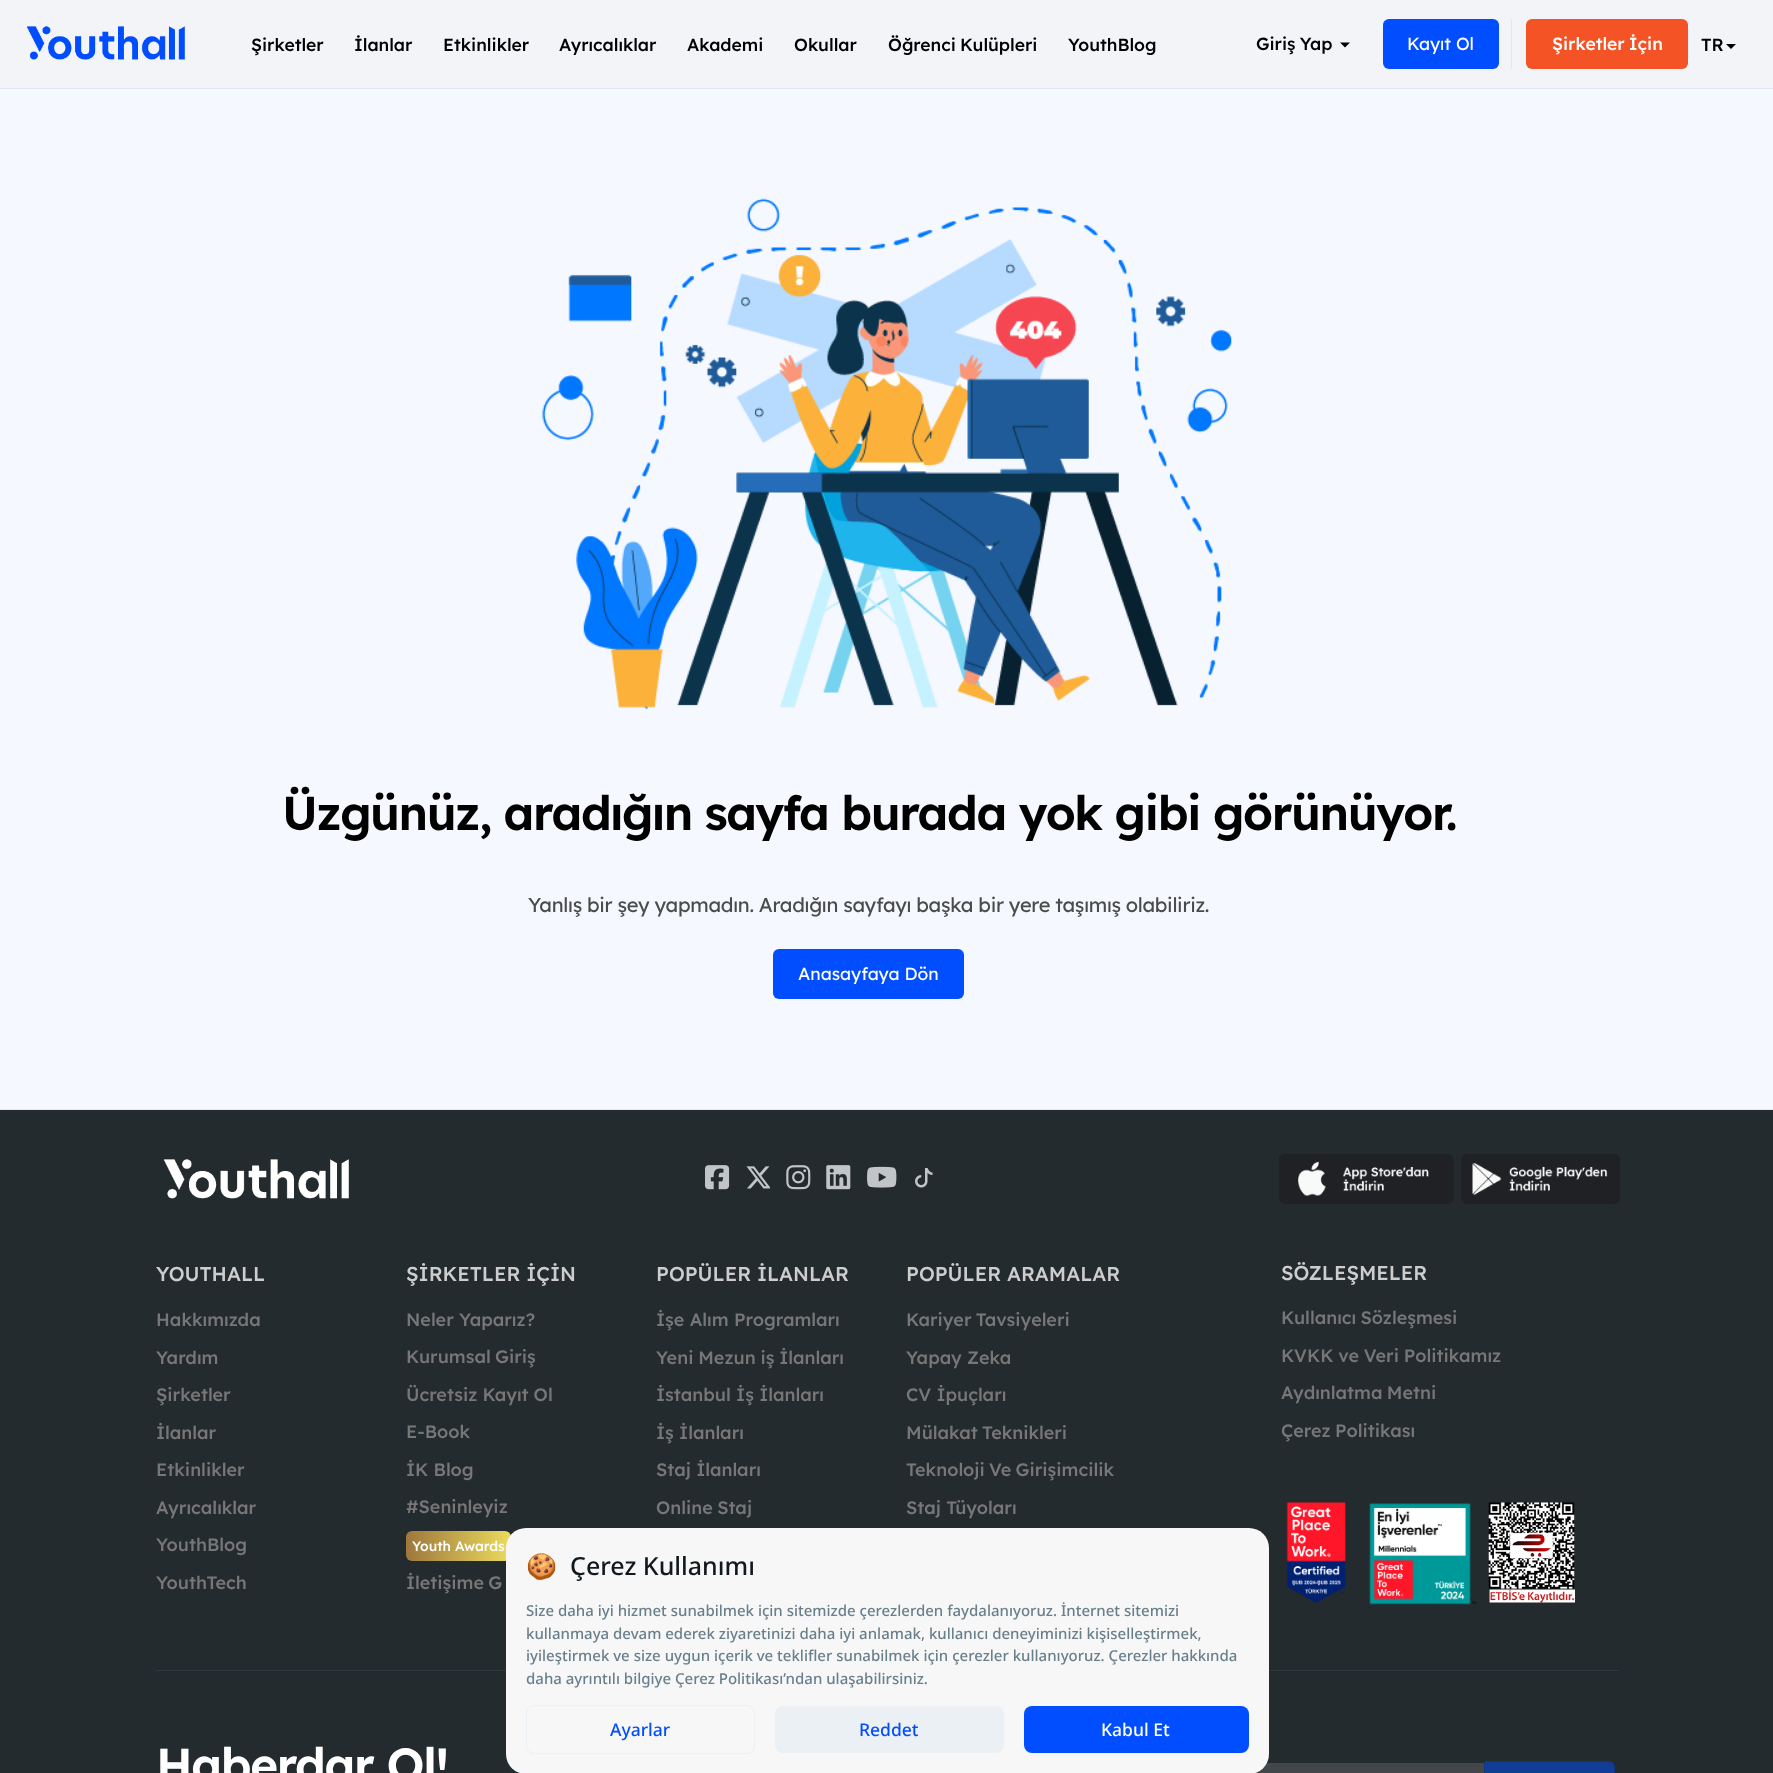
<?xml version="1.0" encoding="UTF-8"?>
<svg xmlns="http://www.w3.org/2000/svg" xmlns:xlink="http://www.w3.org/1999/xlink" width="1773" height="1773">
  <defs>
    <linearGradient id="g1" gradientUnits="userSpaceOnUse" x1="406" y1="1546" x2="616" y2="1546"><stop offset="0" stop-color="#9e773d" /><stop offset="0.51" stop-color="#edde5d" /><stop offset="1" stop-color="#c6b34f" /></linearGradient>
  </defs>
  <rect width="100%" height="100%" fill="#f6f8ff" />
  <rect width="1773" height="88" fill="#f2f2f2" fill-opacity="0.6" />
  <rect y="88" width="1773" height="1" fill="#e0e6f6" />
  <image x="27" y="26" width="158" height="34" xlink:href="image1.png" />
  <path d="M 1340 42.5 h 10 l -5 5 z" fill="#000000" />
  <rect x="1511" y="19" width="1" height="50" fill="#e0e8f3" />
  <rect x="1383" y="19" width="116" height="50" rx="6" fill="#004eff" />
  <rect x="1526" y="19" width="162" height="50" rx="6" fill="#f45325" />
  <rect x="1688" y="30" width="1" height="28" fill="#e0e8f3" />
  <path d="M 1726 44 h 10 l -5 5 z" fill="#000000" />
  <image x="542" y="198" width="690" height="511" xlink:href="image2.png" />
  <rect x="773" y="949" width="191" height="50" rx="6" fill="#004eff" />
  <rect y="1109" width="1773" height="1" fill="#e5e8e8" />
  <rect y="1110" width="1773" height="663" fill="#232b2f" />
  <image x="163" y="1159" width="186" height="40" xlink:href="image3.png" />
  <image x="705" y="1165" width="25" height="25" xlink:href="image4.png" />
  <image x="746" y="1166" width="24" height="23" xlink:href="image5.png" />
  <image x="786" y="1165" width="25" height="25" xlink:href="image6.png" />
  <image x="826" y="1165" width="25" height="25" xlink:href="image7.png" />
  <image x="867" y="1166" width="30" height="22" xlink:href="image8.png" />
  <image x="915" y="1168" width="18" height="20" xlink:href="image9.png" />
  <image x="1279" y="1154" width="175" height="50" xlink:href="image10.png" />
  <image x="1461" y="1154" width="159" height="50" xlink:href="image11.png" />
  <rect x="406" y="1531" width="105" height="30" rx="6" fill="url(#g1)" />
  <image x="1286" y="1502" width="60" height="101" xlink:href="image12.png" />
  <image x="1369" y="1503" width="108" height="102" xlink:href="image13.png" />
  <image x="1488" y="1502" width="87" height="101" xlink:href="image14.png" />
  <rect x="156" y="1670" width="1463" height="1" fill="#2e383e" />
  <rect x="1255" y="1764" width="228" height="9" fill="#43474c" />
  <rect x="781.5" y="1763.5" width="702" height="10" fill="none" stroke="#43474c" />
  <path d="M 1484.5 1761.5 h 124.5 c 3 0 5.5 2.5 5.5 5.5 v 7 c 0 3 -2.5 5.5 -5.5 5.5 h -124.5 z" fill="#123d97" stroke="#12357e" />
  <rect x="506" y="1528" width="763" height="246" rx="20" fill="#606060" fill-opacity="0.1" filter="blur(0.5px)" />
  <rect x="506" y="1528" width="763" height="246" rx="20" fill="#f7f7f8" />
  <rect x="526.5" y="1705.5" width="228" height="48" rx="7.5" fill="none" stroke="#eaf0f4" />
  <rect x="775" y="1706" width="229" height="47" rx="8" fill="#eaf0f4" />
  <rect x="1024" y="1706" width="225" height="47" rx="8" fill="#004eff" />
  <text x="251" y="51" style="font-family: Lexend Deca; font-size: 17.5px; font-weight: 500; fill: #000000">Şirketler</text>
  <text x="354" y="51" style="font-family: Lexend Deca; font-size: 17.5px; font-weight: 500; fill: #000000">İlanlar</text>
  <text x="443" y="51" style="font-family: Lexend Deca; font-size: 17.5px; font-weight: 500; fill: #000000">Etkinlikler</text>
  <text x="559" y="51" style="font-family: Lexend Deca; font-size: 17.5px; font-weight: 500; fill: #000000">Ayrıcalıklar</text>
  <text x="687" y="51" style="font-family: Lexend Deca; font-size: 17.5px; font-weight: 500; fill: #000000">Akademi</text>
  <text x="794" y="51" style="font-family: Lexend Deca; font-size: 17.5px; font-weight: 500; fill: #000000">Okullar</text>
  <text x="888" y="51" word-spacing="-1" style="font-family: Lexend Deca; font-size: 17.5px; font-weight: 500; fill: #000000">Öğrenci Kulüpleri</text>
  <text x="1068" y="51" style="font-family: Lexend Deca; font-size: 17.5px; font-weight: 500; fill: #000000">YouthBlog</text>
  <text x="1256" y="50" word-spacing="-1" style="font-family: Lexend Deca; font-size: 17.5px; font-weight: 500; fill: #000000">Giriş Yap</text>
  <text x="1407" y="50" style="font-family: Lexend Deca; font-size: 17.5px; fill: #ffffff">Kayıt Ol</text>
  <text x="1552" y="50" word-spacing="-1" style="font-family: Lexend Deca; font-size: 17.5px; font-weight: 500; fill: #ffffff">Şirketler İçin</text>
  <text x="1701" y="51" style="font-family: Lexend Deca; font-size: 17.5px; font-weight: 500; fill: #000000">TR</text>
  <text x="282" y="830" word-spacing="-0.5" style="font-family: Lexend Deca; font-size: 47.5px; font-weight: 600; letter-spacing: -1.4px; fill: #000000">Üzgünüz, aradığın sayfa burada yok gibi görünüyor.</text>
  <text x="528" y="912" word-spacing="-0.25" style="font-family: Lexend Deca; font-size: 20px; letter-spacing: -0.28px; fill: #4b4b4b">Yanlış bir şey yapmadın. Aradığın sayfayı başka bir yere taşımış olabiliriz.</text>
  <text x="798" y="980" style="font-family: Lexend Deca; font-size: 17.5px; fill: #ffffff">Anasayfaya Dön</text>
  <text x="156" y="1281" style="font-family: Lexend Deca; font-size: 20px; font-weight: 500; fill: #cdcdcd">YOUTHALL</text>
  <text x="156" y="1326" style="font-family: Lexend Deca; font-size: 18px; font-weight: 500; fill: #777777">Hakkımızda</text>
  <text x="156" y="1364" style="font-family: Lexend Deca; font-size: 18px; font-weight: 500; fill: #777777">Yardım</text>
  <text x="156" y="1401" style="font-family: Lexend Deca; font-size: 18px; font-weight: 500; fill: #777777">Şirketler</text>
  <text x="156" y="1439" style="font-family: Lexend Deca; font-size: 18px; font-weight: 500; fill: #777777">İlanlar</text>
  <text x="156" y="1476" style="font-family: Lexend Deca; font-size: 18px; font-weight: 500; fill: #777777">Etkinlikler</text>
  <text x="156" y="1514" style="font-family: Lexend Deca; font-size: 18px; font-weight: 500; fill: #777777">Ayrıcalıklar</text>
  <text x="156" y="1551" style="font-family: Lexend Deca; font-size: 18px; font-weight: 500; fill: #777777">YouthBlog</text>
  <text x="156" y="1589" style="font-family: Lexend Deca; font-size: 18px; font-weight: 500; fill: #777777">YouthTech</text>
  <text x="406" y="1281" style="font-family: Lexend Deca; font-size: 20px; font-weight: 500; fill: #cdcdcd">ŞİRKETLER İÇİN</text>
  <text x="406" y="1326" style="font-family: Lexend Deca; font-size: 18px; font-weight: 500; fill: #777777">Neler Yaparız?</text>
  <text x="406" y="1363" word-spacing="-1" style="font-family: Lexend Deca; font-size: 18px; font-weight: 500; fill: #777777">Kurumsal Giriş</text>
  <text x="406" y="1401" word-spacing="-0.25" style="font-family: Lexend Deca; font-size: 18px; font-weight: 500; fill: #777777">Ücretsiz Kayıt Ol</text>
  <text x="406" y="1438" style="font-family: Lexend Deca; font-size: 18px; font-weight: 500; fill: #777777">E-Book</text>
  <text x="406" y="1476" style="font-family: Lexend Deca; font-size: 18px; font-weight: 500; fill: #777777">İK Blog</text>
  <text x="406" y="1513" style="font-family: Lexend Deca; font-size: 18px; font-weight: 500; fill: #777777">#Seninleyiz</text>
  <text x="412" y="1551" style="font-family: Lexend Deca; font-size: 13.75px; font-weight: 500; fill: #ffffff">Youth Awards</text>
  <text x="406" y="1589" word-spacing="-1" style="font-family: Lexend Deca; font-size: 18px; font-weight: 500; fill: #777777">İletişime G</text>
  <text x="656" y="1281" style="font-family: Lexend Deca; font-size: 20px; font-weight: 500; fill: #cdcdcd">POPÜLER İLANLAR</text>
  <text x="656" y="1326" style="font-family: Lexend Deca; font-size: 18px; font-weight: 500; fill: #777777">İşe Alım Programları</text>
  <text x="656" y="1364" word-spacing="-0.5" style="font-family: Lexend Deca; font-size: 18px; font-weight: 500; fill: #777777">Yeni Mezun iş İlanları</text>
  <text x="656" y="1401" style="font-family: Lexend Deca; font-size: 18px; font-weight: 500; fill: #777777">İstanbul İş İlanları</text>
  <text x="656" y="1439" style="font-family: Lexend Deca; font-size: 18px; font-weight: 500; fill: #777777">İş İlanları</text>
  <text x="656" y="1476" style="font-family: Lexend Deca; font-size: 18px; font-weight: 500; fill: #777777">Staj İlanları</text>
  <text x="656" y="1514" word-spacing="-1" style="font-family: Lexend Deca; font-size: 18px; font-weight: 500; fill: #777777">Online Staj</text>
  <text x="906" y="1281" style="font-family: Lexend Deca; font-size: 20px; font-weight: 500; fill: #cdcdcd">POPÜLER ARAMALAR</text>
  <text x="906" y="1326" word-spacing="-1" style="font-family: Lexend Deca; font-size: 18px; font-weight: 500; fill: #777777">Kariyer Tavsiyeleri</text>
  <text x="906" y="1364" style="font-family: Lexend Deca; font-size: 18px; font-weight: 500; fill: #777777">Yapay Zeka</text>
  <text x="906" y="1401" style="font-family: Lexend Deca; font-size: 18px; font-weight: 500; fill: #777777">CV İpuçları</text>
  <text x="906" y="1439" word-spacing="-1" style="font-family: Lexend Deca; font-size: 18px; font-weight: 500; fill: #777777">Mülakat Teknikleri</text>
  <text x="906" y="1476" word-spacing="-1" style="font-family: Lexend Deca; font-size: 18px; font-weight: 500; fill: #777777">Teknoloji Ve Girişimcilik</text>
  <text x="906" y="1514" style="font-family: Lexend Deca; font-size: 18px; font-weight: 500; fill: #777777">Staj Tüyoları</text>
  <text x="1281" y="1280" style="font-family: Lexend Deca; font-size: 20px; font-weight: 500; fill: #cdcdcd">SÖZLEŞMELER</text>
  <text x="1281" y="1324" word-spacing="-1" style="font-family: Lexend Deca; font-size: 18px; font-weight: 500; fill: #777777">Kullanıcı Sözleşmesi</text>
  <text x="1281" y="1362" word-spacing="-0.5" style="font-family: Lexend Deca; font-size: 18px; font-weight: 500; fill: #777777">KVKK ve Veri Politikamız</text>
  <text x="1281" y="1399" word-spacing="-1" style="font-family: Lexend Deca; font-size: 18px; font-weight: 500; fill: #777777">Aydınlatma Metni</text>
  <text x="1281" y="1437" word-spacing="-1" style="font-family: Lexend Deca; font-size: 18px; font-weight: 500; fill: #777777">Çerez Politikası</text>
  <text x="156" y="1782" style="font-family: Lexend Deca; font-size: 47.5px; font-weight: 600; letter-spacing: -1.4px; fill: #ffffff">Haberdar Ol!</text>
  <text x="526" y="1575" style="font-family: Noto Color Emoji; font-size: 25px; fill: #10191e">🍪</text>
  <text x="570" y="1575" style="font-family: Noto Sans; font-size: 25px; font-weight: 500; fill: #10191e">Çerez Kullanımı</text>
  <text x="526" y="1616" style="font-family: Noto Sans; font-size: 15px; font-weight: 500; fill: #687f8c">Size daha iyi hizmet sunabilmek için sitemizde çerezlerden faydalanıyoruz. İnternet sitemizi</text>
  <text x="526" y="1639" style="font-family: Noto Sans; font-size: 15px; font-weight: 500; fill: #687f8c">kullanmaya devam ederek ziyaretinizi daha iyi anlamak, kullanıcı deneyiminizi kişiselleştirmek,</text>
  <text x="526" y="1661" style="font-family: Noto Sans; font-size: 15px; font-weight: 500; fill: #687f8c">iyileştirmek ve size uygun içerik ve teklifler sunabilmek için çerezler kullanıyoruz. Çerezler hakkında</text>
  <text x="526" y="1684" style="font-family: Noto Sans; font-size: 15px; font-weight: 500; fill: #687f8c">daha ayrıntılı bilgiye Çerez Politikası’ndan ulaşabilirsiniz.</text>
  <text x="610" y="1736" style="font-family: Noto Sans; font-size: 17.5px; font-weight: 500; fill: #004eff">Ayarlar</text>
  <text x="859" y="1736" style="font-family: Noto Sans; font-size: 17.5px; font-weight: 500; fill: #004eff">Reddet</text>
  <text x="1101" y="1736" style="font-family: Noto Sans; font-size: 17.5px; font-weight: 500; fill: #ffffff">Kabul Et</text>
</svg>
